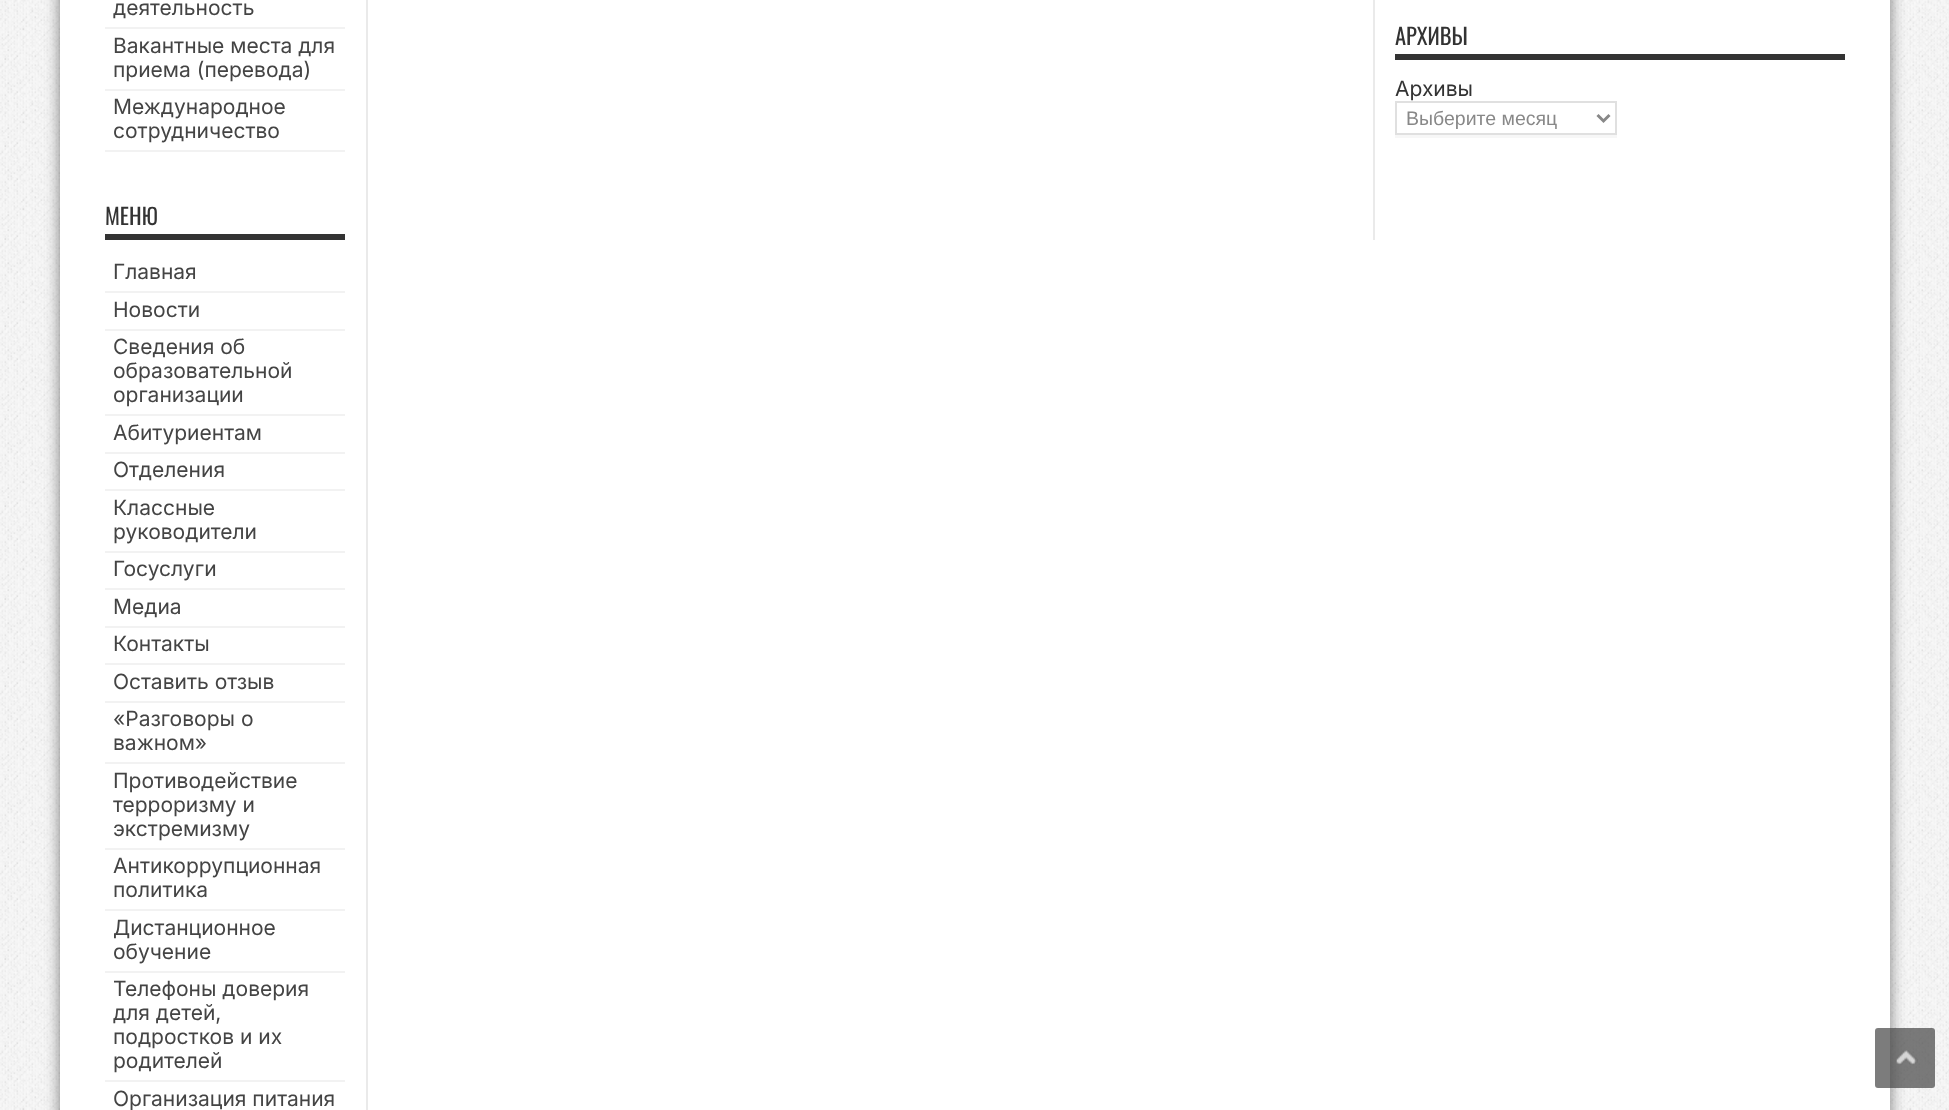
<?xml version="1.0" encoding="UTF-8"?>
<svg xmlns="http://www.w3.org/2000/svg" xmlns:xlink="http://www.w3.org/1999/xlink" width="1949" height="1110">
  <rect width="100%" height="100%" fill="#ffffff" />
  <image x="0" y="0" width="1949" height="1110" xlink:href="image1.png" />
  <rect x="60" y="-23" width="1830" height="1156" fill="#000000" fill-opacity="0.5" filter="blur(7.5px)" />
  <rect x="60" width="1830" height="1110" fill="#ffffff" />
  <rect x="366" width="2" height="1110" fill="#eaeaea" />
  <rect x="105" y="27" width="240" height="2" fill="#f2f2f2" />
  <rect x="105" y="89" width="240" height="2" fill="#f2f2f2" />
  <rect x="105" y="150" width="240" height="2" fill="#f2f2f2" />
  <rect x="105" y="234" width="240" height="6" fill="#333333" />
  <rect x="105" y="291" width="240" height="2" fill="#f2f2f2" />
  <rect x="105" y="329" width="240" height="2" fill="#f2f2f2" />
  <rect x="105" y="414" width="240" height="2" fill="#f2f2f2" />
  <rect x="105" y="452" width="240" height="2" fill="#f2f2f2" />
  <rect x="105" y="489" width="240" height="2" fill="#f2f2f2" />
  <rect x="105" y="551" width="240" height="2" fill="#f2f2f2" />
  <rect x="105" y="588" width="240" height="2" fill="#f2f2f2" />
  <rect x="105" y="626" width="240" height="2" fill="#f2f2f2" />
  <rect x="105" y="663" width="240" height="2" fill="#f2f2f2" />
  <rect x="105" y="701" width="240" height="2" fill="#f2f2f2" />
  <rect x="105" y="762" width="240" height="2" fill="#f2f2f2" />
  <rect x="105" y="848" width="240" height="2" fill="#f2f2f2" />
  <rect x="105" y="909" width="240" height="2" fill="#f2f2f2" />
  <rect x="105" y="971" width="240" height="2" fill="#f2f2f2" />
  <rect x="105" y="1080" width="240" height="2" fill="#f2f2f2" />
  <rect x="1373" width="2" height="240" fill="#eaeaea" />
  <rect x="1395" y="54" width="450" height="6" fill="#333333" />
  <rect x="1395" y="135" width="222" height="3" fill="#f7f7f7" />
  <rect x="1396" y="102" width="220" height="32" fill="none" stroke="#e0e0e0" stroke-width="2" />
  <path d="M 1597.5 115 l 6 6 l 6 -6" fill="none" stroke="#888888" stroke-width="3" />
  <rect x="1875" y="1028" width="60" height="60" rx="3" fill="#444444" fill-opacity="0.7" />
  <image x="1896" y="1050" width="22" height="15" xlink:href="image2.png" />
  <text x="113" y="15" style="font-family: Inter; font-size: 21px; fill: #444444">деятельность</text>
  <text x="113" y="53" style="font-family: Inter; font-size: 21px; fill: #444444">Вакантные места для</text>
  <text x="113" y="77" style="font-family: Inter; font-size: 21px; fill: #444444">приема (перевода)</text>
  <text x="113" y="114" style="font-family: Inter; font-size: 21px; fill: #444444">Международное</text>
  <text x="113" y="138" style="font-family: Inter; font-size: 21px; fill: #444444">сотрудничество</text>
  <text x="105" y="225" style="font-family: Oswald; font-size: 22.5px; fill: #333333">МЕНЮ</text>
  <text x="113" y="279" style="font-family: Inter; font-size: 21px; fill: #444444">Главная</text>
  <text x="113" y="317" style="font-family: Inter; font-size: 21px; fill: #444444">Новости</text>
  <text x="113" y="354" style="font-family: Inter; font-size: 21px; fill: #444444">Сведения об</text>
  <text x="113" y="378" style="font-family: Inter; font-size: 21px; fill: #444444">образовательной</text>
  <text x="113" y="402" style="font-family: Inter; font-size: 21px; fill: #444444">организации</text>
  <text x="113" y="440" style="font-family: Inter; font-size: 21px; fill: #444444">Абитуриентам</text>
  <text x="113" y="477" style="font-family: Inter; font-size: 21px; fill: #444444">Отделения</text>
  <text x="113" y="515" style="font-family: Inter; font-size: 21px; fill: #444444">Классные</text>
  <text x="113" y="539" style="font-family: Inter; font-size: 21px; fill: #444444">руководители</text>
  <text x="113" y="576" style="font-family: Inter; font-size: 21px; fill: #444444">Госуслуги</text>
  <text x="113" y="614" style="font-family: Inter; font-size: 21px; fill: #444444">Медиа</text>
  <text x="113" y="651" style="font-family: Inter; font-size: 21px; fill: #444444">Контакты</text>
  <text x="113" y="689" style="font-family: Inter; font-size: 21px; fill: #444444">Оставить отзыв</text>
  <text x="113" y="726" style="font-family: Inter; font-size: 21px; fill: #444444">«Разговоры о</text>
  <text x="113" y="750" style="font-family: Inter; font-size: 21px; fill: #444444">важном»</text>
  <text x="113" y="788" style="font-family: Inter; font-size: 21px; fill: #444444">Противодействие</text>
  <text x="113" y="812" style="font-family: Inter; font-size: 21px; fill: #444444">терроризму и</text>
  <text x="113" y="836" style="font-family: Inter; font-size: 21px; fill: #444444">экстремизму</text>
  <text x="113" y="873" style="font-family: Inter; font-size: 21px; fill: #444444">Антикоррупционная</text>
  <text x="113" y="897" style="font-family: Inter; font-size: 21px; fill: #444444">политика</text>
  <text x="113" y="935" style="font-family: Inter; font-size: 21px; fill: #444444">Дистанционное</text>
  <text x="113" y="959" style="font-family: Inter; font-size: 21px; fill: #444444">обучение</text>
  <text x="113" y="996" style="font-family: Inter; font-size: 21px; fill: #444444">Телефоны доверия</text>
  <text x="113" y="1020" style="font-family: Inter; font-size: 21px; fill: #444444">для детей,</text>
  <text x="113" y="1044" style="font-family: Inter; font-size: 21px; fill: #444444">подростков и их</text>
  <text x="113" y="1068" style="font-family: Inter; font-size: 21px; fill: #444444">родителей</text>
  <text x="113" y="1106" style="font-family: Inter; font-size: 21px; fill: #444444">Организация питания</text>
  <text x="1395" y="45" style="font-family: Oswald; font-size: 22.5px; fill: #333333">АРХИВЫ</text>
  <text x="1395" y="96" style="font-family: Inter; font-size: 21px; fill: #333333">Архивы</text>
  <text x="1406" y="125" style="font-family: Liberation Sans; font-size: 19.5px; fill: #888888">Выберите месяц</text>
</svg>
